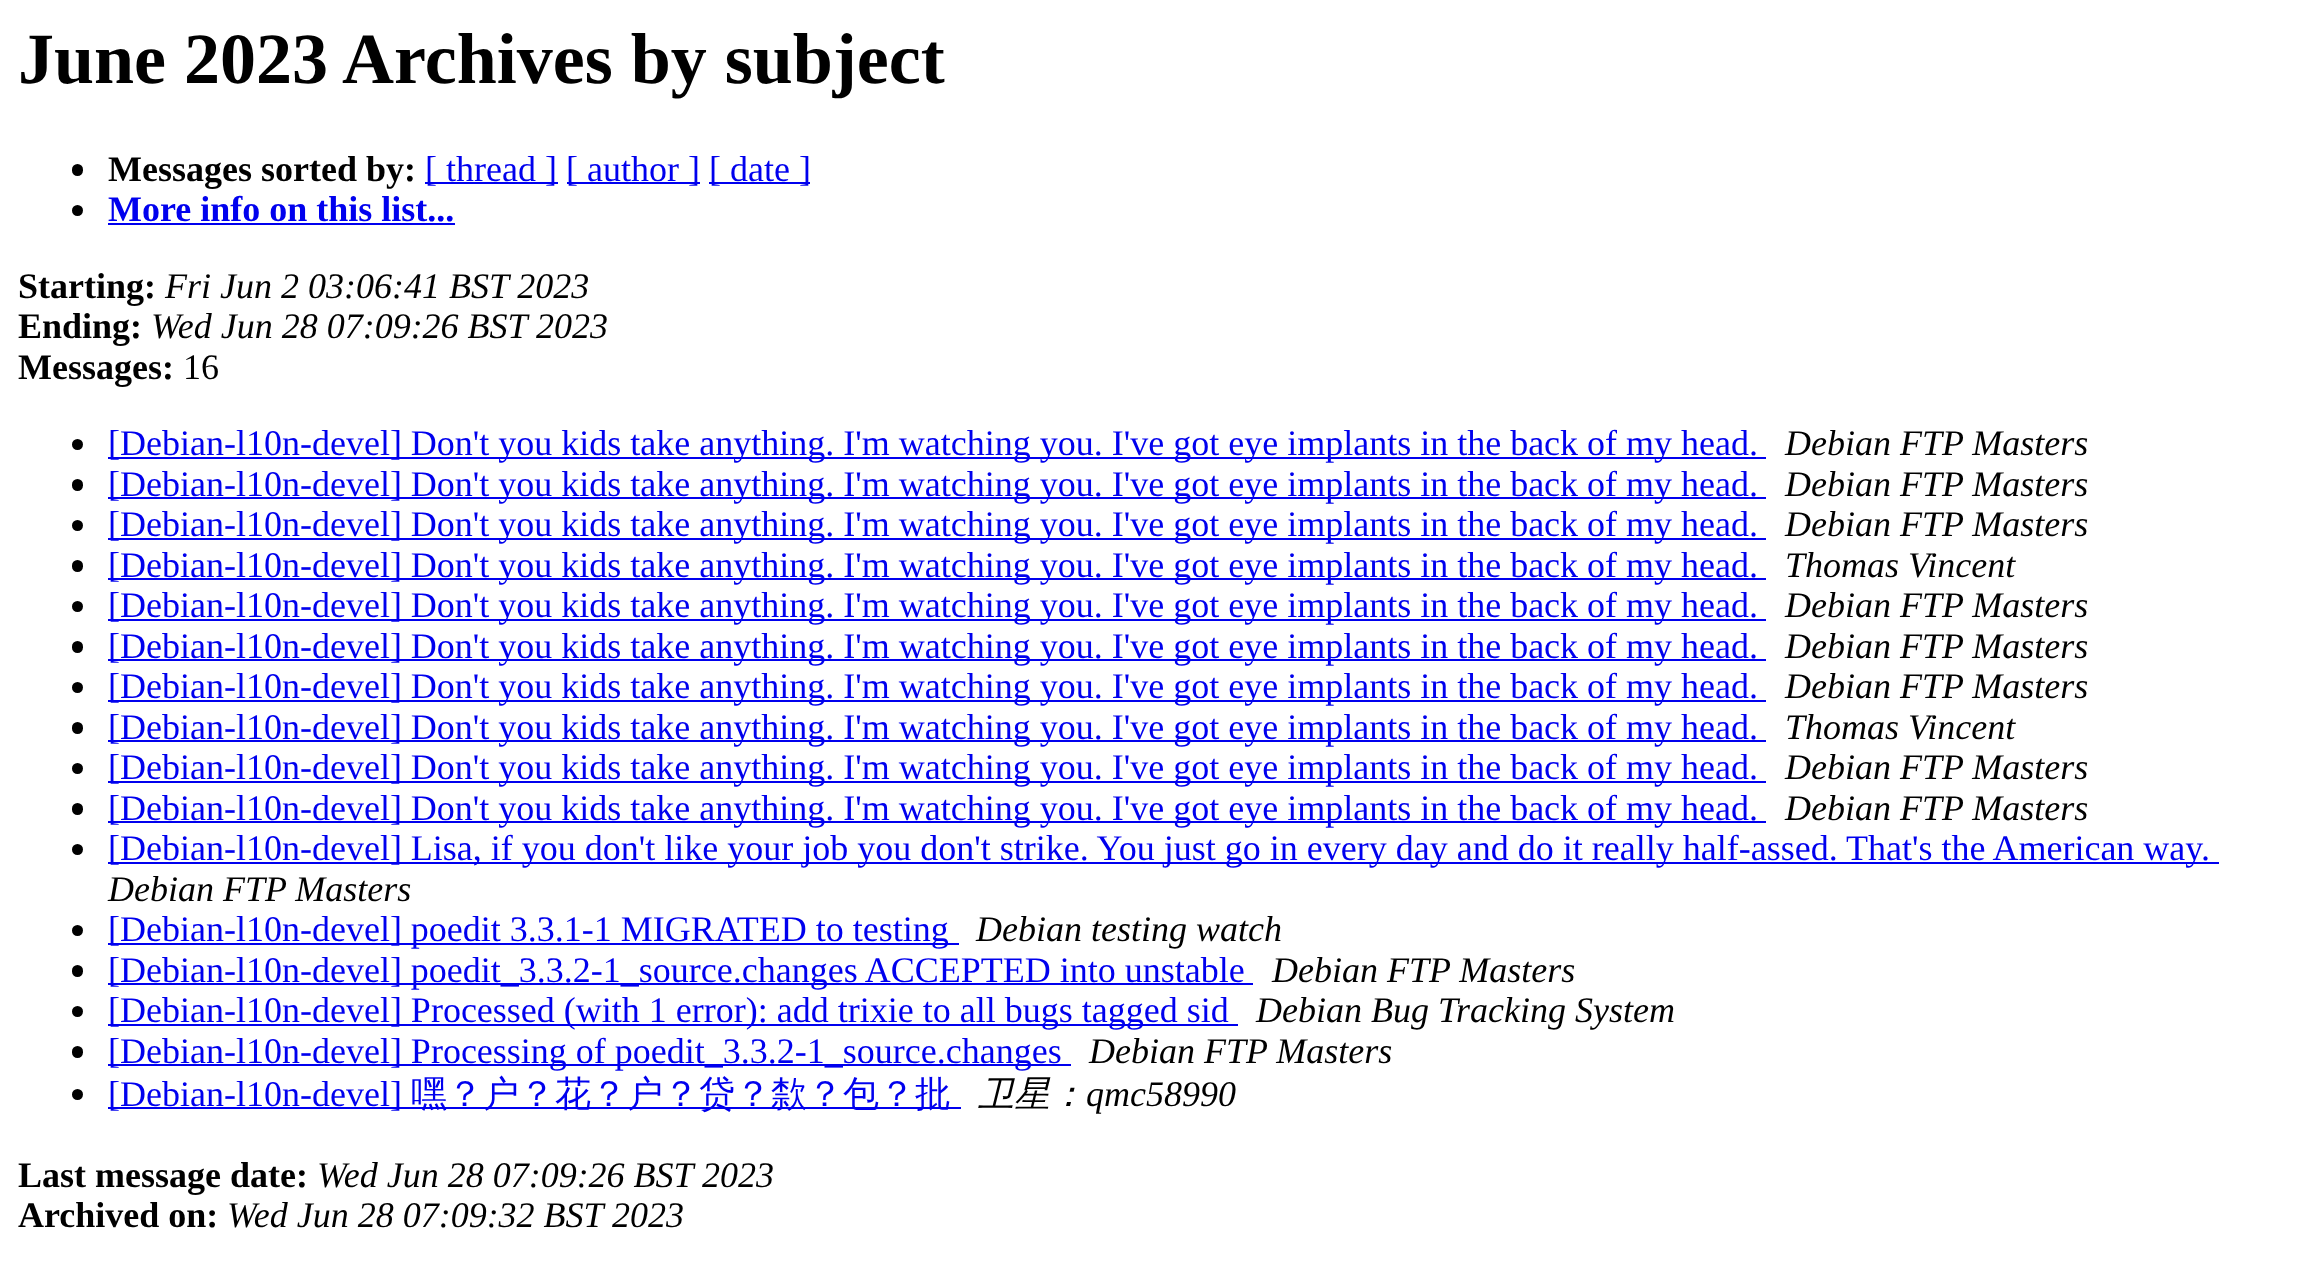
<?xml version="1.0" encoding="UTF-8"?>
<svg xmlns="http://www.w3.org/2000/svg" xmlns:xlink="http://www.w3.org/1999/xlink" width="2322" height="1270">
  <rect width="100%" height="100%" fill="#ffffff" />
  <rect x="72" y="164" width="11" height="12" rx="5.5" fill="#000000" />
  <rect x="425" y="182" width="133" height="2" fill="#0000ee" />
  <rect x="567" y="182" width="133" height="2" fill="#0000ee" />
  <rect x="709" y="182" width="101" height="2" fill="#0000ee" />
  <circle cx="77.5" cy="210.5" r="5.5" fill="#000000" />
  <rect x="108" y="223" width="347" height="2" fill="#0000ee" />
  <circle cx="77.5" cy="444.5" r="5.5" fill="#000000" />
  <rect x="108" y="457" width="1658" height="2" fill="#0000ee" />
  <rect x="72" y="479" width="11" height="12" rx="5.5" fill="#000000" />
  <rect x="108" y="497" width="1658" height="2" fill="#0000ee" />
  <circle cx="77.5" cy="525.5" r="5.5" fill="#000000" />
  <rect x="108" y="538" width="1658" height="2" fill="#0000ee" />
  <rect x="72" y="560" width="11" height="12" rx="5.5" fill="#000000" />
  <rect x="108" y="578" width="1658" height="2" fill="#0000ee" />
  <circle cx="77.5" cy="606.5" r="5.5" fill="#000000" />
  <rect x="108" y="619" width="1658" height="2" fill="#0000ee" />
  <rect x="72" y="641" width="11" height="12" rx="5.5" fill="#000000" />
  <rect x="108" y="659" width="1658" height="2" fill="#0000ee" />
  <circle cx="77.5" cy="687.5" r="5.5" fill="#000000" />
  <rect x="108" y="700" width="1658" height="2" fill="#0000ee" />
  <rect x="72" y="722" width="11" height="12" rx="5.5" fill="#000000" />
  <rect x="108" y="740" width="1658" height="2" fill="#0000ee" />
  <circle cx="77.5" cy="768.5" r="5.5" fill="#000000" />
  <rect x="108" y="781" width="1658" height="2" fill="#0000ee" />
  <rect x="72" y="803" width="11" height="12" rx="5.5" fill="#000000" />
  <rect x="108" y="821" width="1658" height="2" fill="#0000ee" />
  <circle cx="77.5" cy="849.5" r="5.5" fill="#000000" />
  <rect x="108" y="862" width="2111" height="2" fill="#0000ee" />
  <circle cx="77.5" cy="930.5" r="5.5" fill="#000000" />
  <rect x="108" y="943" width="851" height="2" fill="#0000ee" />
  <rect x="72" y="965" width="11" height="12" rx="5.5" fill="#000000" />
  <rect x="108" y="983" width="1145" height="2" fill="#0000ee" />
  <circle cx="77.5" cy="1011.5" r="5.5" fill="#000000" />
  <rect x="108" y="1024" width="1130" height="2" fill="#0000ee" />
  <rect x="72" y="1046" width="11" height="12" rx="5.5" fill="#000000" />
  <rect x="108" y="1064" width="963" height="2" fill="#0000ee" />
  <circle cx="77.5" cy="1094.5" r="5.5" fill="#000000" />
  <rect x="108" y="1107" width="853" height="2" fill="#0000ee" />
  <text x="18" y="83" style="font-family: Liberation Serif; font-size: 72px; font-weight: bold; fill: #000000">June 2023 Archives by subject</text>
  <text x="108" y="181" style="font-family: Liberation Serif; font-size: 36px; font-weight: bold; fill: #000000">Messages sorted by:</text>
  <text x="425" y="181" style="font-family: Liberation Serif; font-size: 36px; fill: #0000ee">[ thread ]</text>
  <text x="566" y="181" style="font-family: Liberation Serif; font-size: 36px; fill: #0000ee">[ author ]</text>
  <text x="709" y="181" style="font-family: Liberation Serif; font-size: 36px; fill: #0000ee">[ date ]</text>
  <text x="108" y="221" style="font-family: Liberation Serif; font-size: 36px; font-weight: bold; fill: #0000ee">More info on this list...</text>
  <text x="18" y="298" style="font-family: Liberation Serif; font-size: 36px; font-weight: bold; fill: #000000">Starting:</text>
  <text x="165" y="298" style="font-family: Liberation Serif; font-size: 36px; font-style: italic; fill: #000000">Fri Jun 2 03:06:41 BST 2023</text>
  <text x="18" y="338" style="font-family: Liberation Serif; font-size: 36px; font-weight: bold; fill: #000000">Ending:</text>
  <text x="151" y="338" style="font-family: Liberation Serif; font-size: 36px; font-style: italic; fill: #000000">Wed Jun 28 07:09:26 BST 2023</text>
  <text x="18" y="379" style="font-family: Liberation Serif; font-size: 36px; font-weight: bold; fill: #000000">Messages:</text>
  <text x="183" y="379" style="font-family: Liberation Serif; font-size: 36px; fill: #000000">16</text>
  <text x="108" y="455" style="font-family: Liberation Serif; font-size: 36px; fill: #0000ee">[Debian-l10n-devel] Don't you kids take anything. I'm watching you. I've got eye implants in the back of my head.</text>
  <text x="1785" y="455" style="font-family: Liberation Serif; font-size: 36px; font-style: italic; fill: #000000">Debian FTP Masters</text>
  <text x="108" y="496" style="font-family: Liberation Serif; font-size: 36px; fill: #0000ee">[Debian-l10n-devel] Don't you kids take anything. I'm watching you. I've got eye implants in the back of my head.</text>
  <text x="1785" y="496" style="font-family: Liberation Serif; font-size: 36px; font-style: italic; fill: #000000">Debian FTP Masters</text>
  <text x="108" y="536" style="font-family: Liberation Serif; font-size: 36px; fill: #0000ee">[Debian-l10n-devel] Don't you kids take anything. I'm watching you. I've got eye implants in the back of my head.</text>
  <text x="1785" y="536" style="font-family: Liberation Serif; font-size: 36px; font-style: italic; fill: #000000">Debian FTP Masters</text>
  <text x="108" y="577" style="font-family: Liberation Serif; font-size: 36px; fill: #0000ee">[Debian-l10n-devel] Don't you kids take anything. I'm watching you. I've got eye implants in the back of my head.</text>
  <text x="1785" y="577" style="font-family: Liberation Serif; font-size: 36px; font-style: italic; fill: #000000">Thomas Vincent</text>
  <text x="108" y="617" style="font-family: Liberation Serif; font-size: 36px; fill: #0000ee">[Debian-l10n-devel] Don't you kids take anything. I'm watching you. I've got eye implants in the back of my head.</text>
  <text x="1785" y="617" style="font-family: Liberation Serif; font-size: 36px; font-style: italic; fill: #000000">Debian FTP Masters</text>
  <text x="108" y="658" style="font-family: Liberation Serif; font-size: 36px; fill: #0000ee">[Debian-l10n-devel] Don't you kids take anything. I'm watching you. I've got eye implants in the back of my head.</text>
  <text x="1785" y="658" style="font-family: Liberation Serif; font-size: 36px; font-style: italic; fill: #000000">Debian FTP Masters</text>
  <text x="108" y="698" style="font-family: Liberation Serif; font-size: 36px; fill: #0000ee">[Debian-l10n-devel] Don't you kids take anything. I'm watching you. I've got eye implants in the back of my head.</text>
  <text x="1785" y="698" style="font-family: Liberation Serif; font-size: 36px; font-style: italic; fill: #000000">Debian FTP Masters</text>
  <text x="108" y="739" style="font-family: Liberation Serif; font-size: 36px; fill: #0000ee">[Debian-l10n-devel] Don't you kids take anything. I'm watching you. I've got eye implants in the back of my head.</text>
  <text x="1785" y="739" style="font-family: Liberation Serif; font-size: 36px; font-style: italic; fill: #000000">Thomas Vincent</text>
  <text x="108" y="779" style="font-family: Liberation Serif; font-size: 36px; fill: #0000ee">[Debian-l10n-devel] Don't you kids take anything. I'm watching you. I've got eye implants in the back of my head.</text>
  <text x="1785" y="779" style="font-family: Liberation Serif; font-size: 36px; font-style: italic; fill: #000000">Debian FTP Masters</text>
  <text x="108" y="820" style="font-family: Liberation Serif; font-size: 36px; fill: #0000ee">[Debian-l10n-devel] Don't you kids take anything. I'm watching you. I've got eye implants in the back of my head.</text>
  <text x="1785" y="820" style="font-family: Liberation Serif; font-size: 36px; font-style: italic; fill: #000000">Debian FTP Masters</text>
  <text x="108" y="860" style="font-family: Liberation Serif; font-size: 36px; fill: #0000ee">[Debian-l10n-devel] Lisa, if you don't like your job you don't strike. You just go in every day and do it really half-assed. That's the American way.</text>
  <text x="108" y="901" style="font-family: Liberation Serif; font-size: 36px; font-style: italic; fill: #000000">Debian FTP Masters</text>
  <text x="108" y="941" style="font-family: Liberation Serif; font-size: 36px; fill: #0000ee">[Debian-l10n-devel] poedit 3.3.1-1 MIGRATED to testing</text>
  <text x="976" y="941" style="font-family: Liberation Serif; font-size: 36px; font-style: italic; fill: #000000">Debian testing watch</text>
  <text x="108" y="982" style="font-family: Liberation Serif; font-size: 36px; fill: #0000ee">[Debian-l10n-devel] poedit_3.3.2-1_source.changes ACCEPTED into unstable</text>
  <text x="1272" y="982" style="font-family: Liberation Serif; font-size: 36px; font-style: italic; fill: #000000">Debian FTP Masters</text>
  <text x="108" y="1022" style="font-family: Liberation Serif; font-size: 36px; fill: #0000ee">[Debian-l10n-devel] Processed (with 1 error): add trixie to all bugs tagged sid</text>
  <text x="1256" y="1022" style="font-family: Liberation Serif; font-size: 36px; font-style: italic; fill: #000000">Debian Bug Tracking System</text>
  <text x="108" y="1063" style="font-family: Liberation Serif; font-size: 36px; fill: #0000ee">[Debian-l10n-devel] Processing of poedit_3.3.2-1_source.changes</text>
  <text x="1089" y="1063" style="font-family: Liberation Serif; font-size: 36px; font-style: italic; fill: #000000">Debian FTP Masters</text>
  <text x="108" y="1106" style="font-family: Liberation Serif; font-size: 36px; fill: #0000ee">[Debian-l10n-devel]</text>
  <text x="411" y="1106" style="font-family: WenQuanYi Zen Hei; font-size: 36px; font-weight: 500; fill: #0000ee">嘿？户？花？户？贷？歀？包？批</text>
  <text x="978" y="1106" style="font-family: WenQuanYi Zen Hei; font-size: 36px; font-weight: 500; font-style: italic; fill: #000000">卫星：</text>
  <text x="1086" y="1106" style="font-family: Liberation Serif; font-size: 36px; font-style: italic; fill: #000000">qmc58990</text>
  <text x="18" y="1187" style="font-family: Liberation Serif; font-size: 36px; font-weight: bold; fill: #000000">Last message date:</text>
  <text x="317" y="1187" style="font-family: Liberation Serif; font-size: 36px; font-style: italic; fill: #000000">Wed Jun 28 07:09:26 BST 2023</text>
  <text x="18" y="1227" style="font-family: Liberation Serif; font-size: 36px; font-weight: bold; fill: #000000">Archived on:</text>
  <text x="227" y="1227" style="font-family: Liberation Serif; font-size: 36px; font-style: italic; fill: #000000">Wed Jun 28 07:09:32 BST 2023</text>
</svg>
